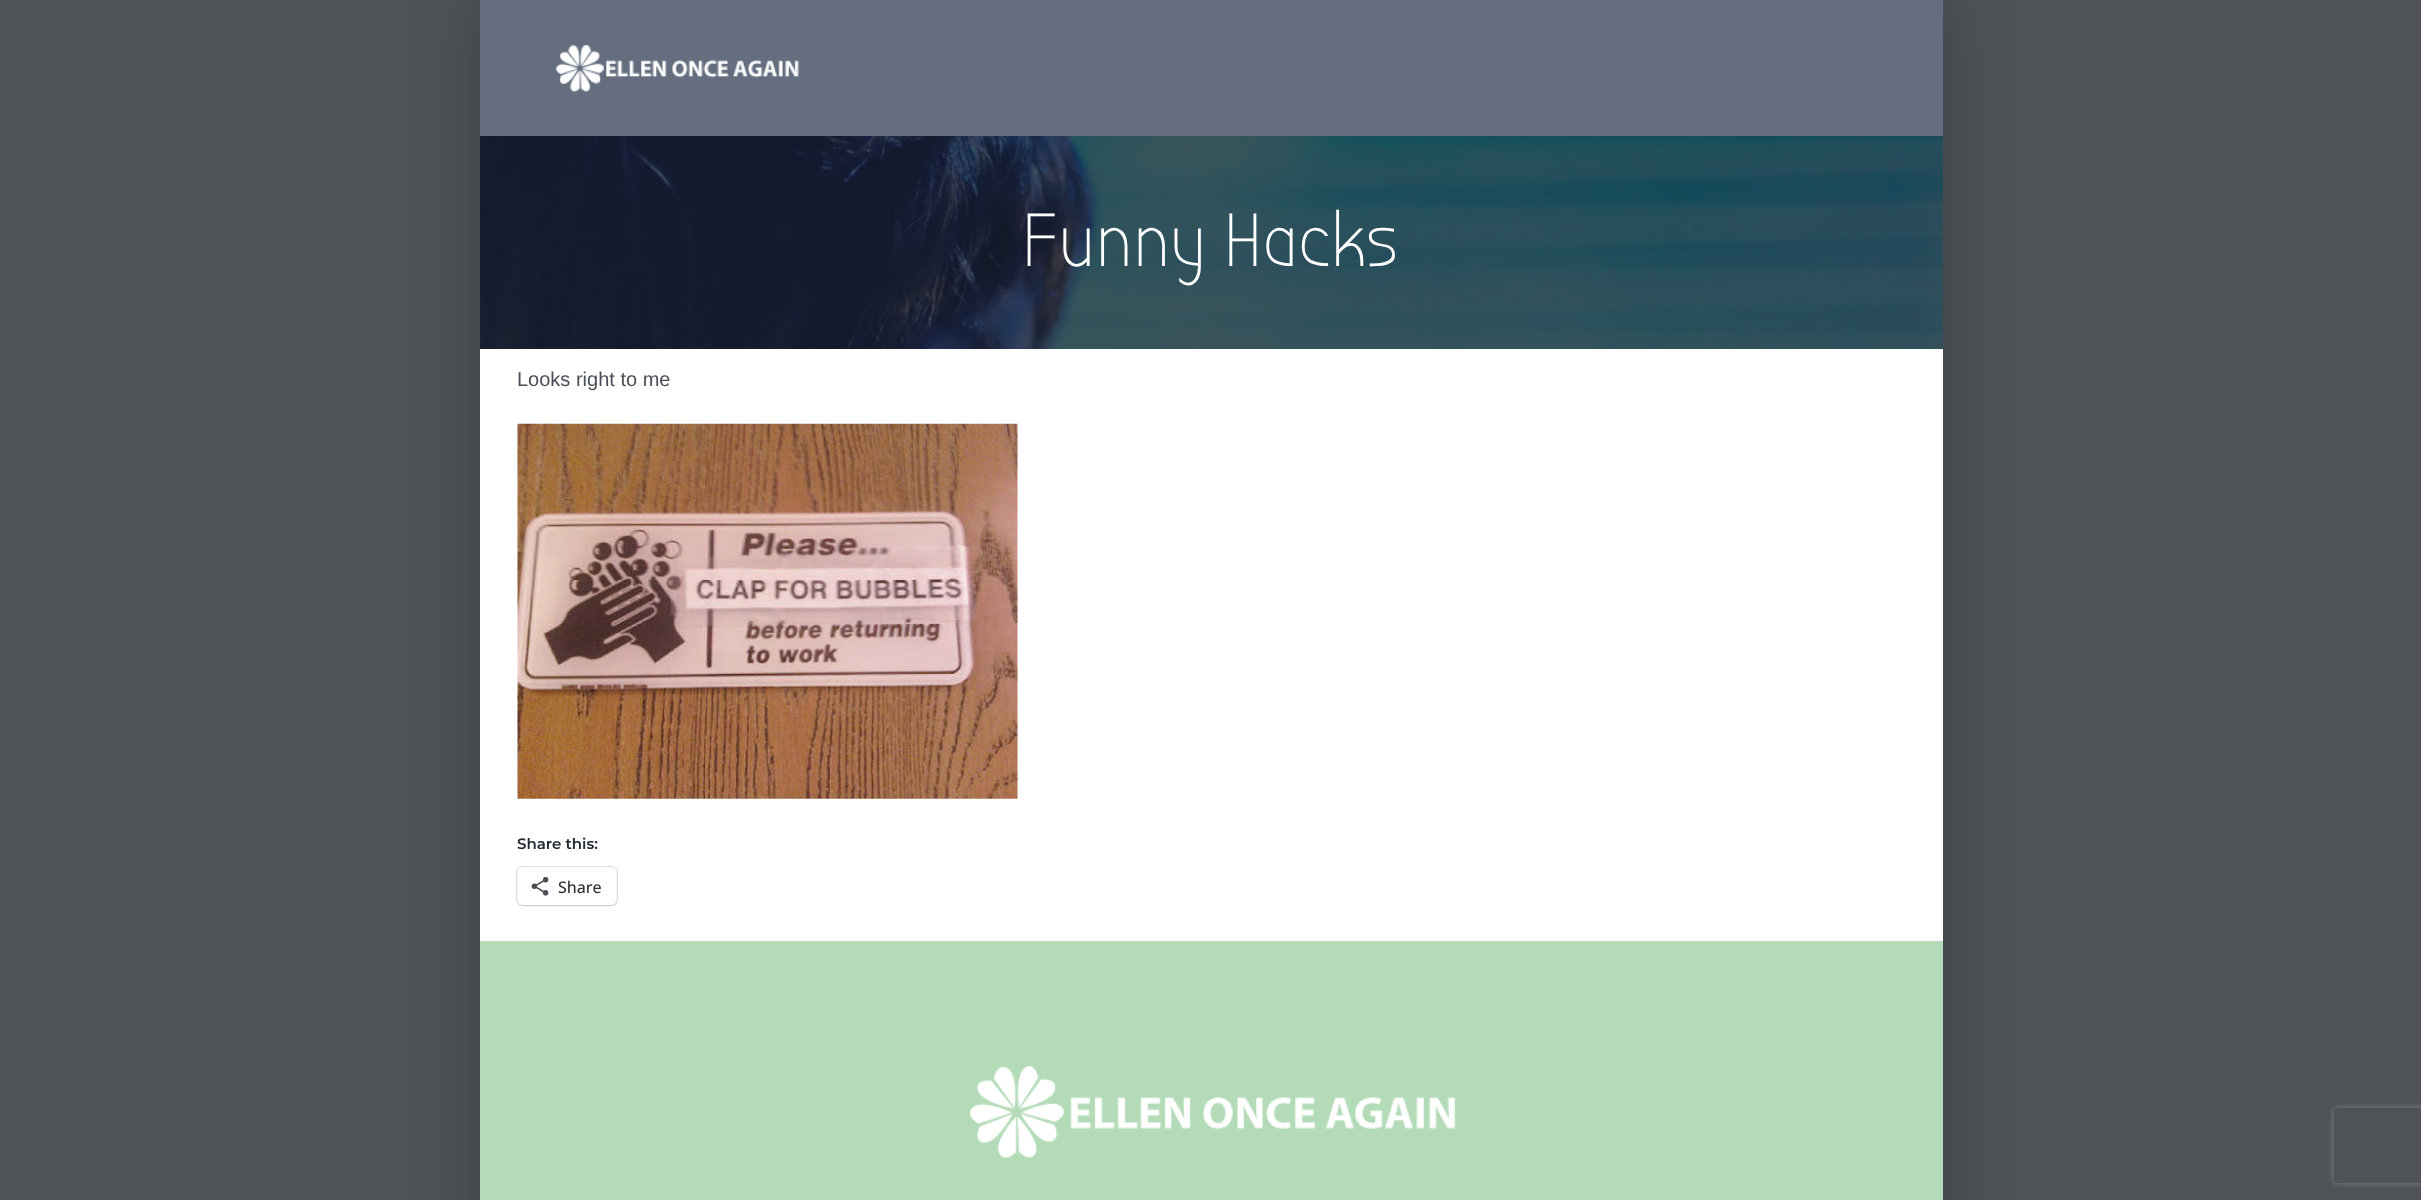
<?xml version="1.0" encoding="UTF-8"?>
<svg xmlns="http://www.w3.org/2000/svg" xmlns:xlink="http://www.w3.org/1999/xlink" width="2421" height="1200">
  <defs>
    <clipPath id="clip1"><path d="M 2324 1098 h 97 v 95 h -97 z m 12.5 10 h 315 c 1.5 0 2.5 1 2.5 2.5 v 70 c 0 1.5 -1 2.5 -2.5 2.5 h -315 c -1.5 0 -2.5 -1 -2.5 -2.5 v -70 c 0 -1.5 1 -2.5 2.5 -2.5 z" clip-rule="evenodd" /></clipPath>
  </defs>
  <rect width="100%" height="100%" fill="#4f5358" />
  <rect x="479" y="-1" width="1465" height="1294" fill="#000000" fill-opacity="0.22" filter="blur(31px)" />
  <rect x="480" width="1463" height="136" fill="#646e7f" />
  <image x="556" y="44" width="243" height="48" xlink:href="image1.png" />
  <image x="480" y="136" width="1463" height="213" xlink:href="image2.png" />
  <rect x="480" y="349" width="1463" height="592" fill="#ffffff" />
  <image x="517" y="423" width="501" height="376" xlink:href="image3.png" />
  <rect x="516.5" y="866.5" width="101" height="39" rx="5.5" fill="none" stroke="#e0e0e0" />
  <rect x="518" y="869" width="98" height="37" rx="5" fill="#000000" fill-opacity="0.12" filter="blur(1px)" />
  <rect x="518" y="868" width="98" height="37" rx="5" fill="#ffffff" />
  <image x="531" y="876" width="18" height="20" xlink:href="image4.png" />
  <rect x="480" y="941" width="1463" height="259" fill="#b4dbb8" />
  <image x="969" y="1066" width="487" height="92" xlink:href="image5.png" />
  <g clip-path="url(#clip1)">
    <rect x="2334" y="1108" width="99" height="75" rx="2.5" fill="#808080" filter="blur(3px)" />
  </g>
  <text x="1022" y="266" style="font-family: Bubbler One; font-size: 75px; letter-spacing: 1.25px; fill: #ffffff">Funny Hacks</text>
  <text x="517" y="386" style="font-family: Liberation Sans; font-size: 20px; fill: #4a4e57">Looks right to me</text>
  <text x="517" y="849" style="font-family: Montserrat; font-size: 15px; font-weight: 600; fill: #212934">Share this:</text>
  <text x="558" y="893" style="font-family: Open Sans; font-size: 16px; font-weight: 500; fill: #2c3338">Share</text>
</svg>
